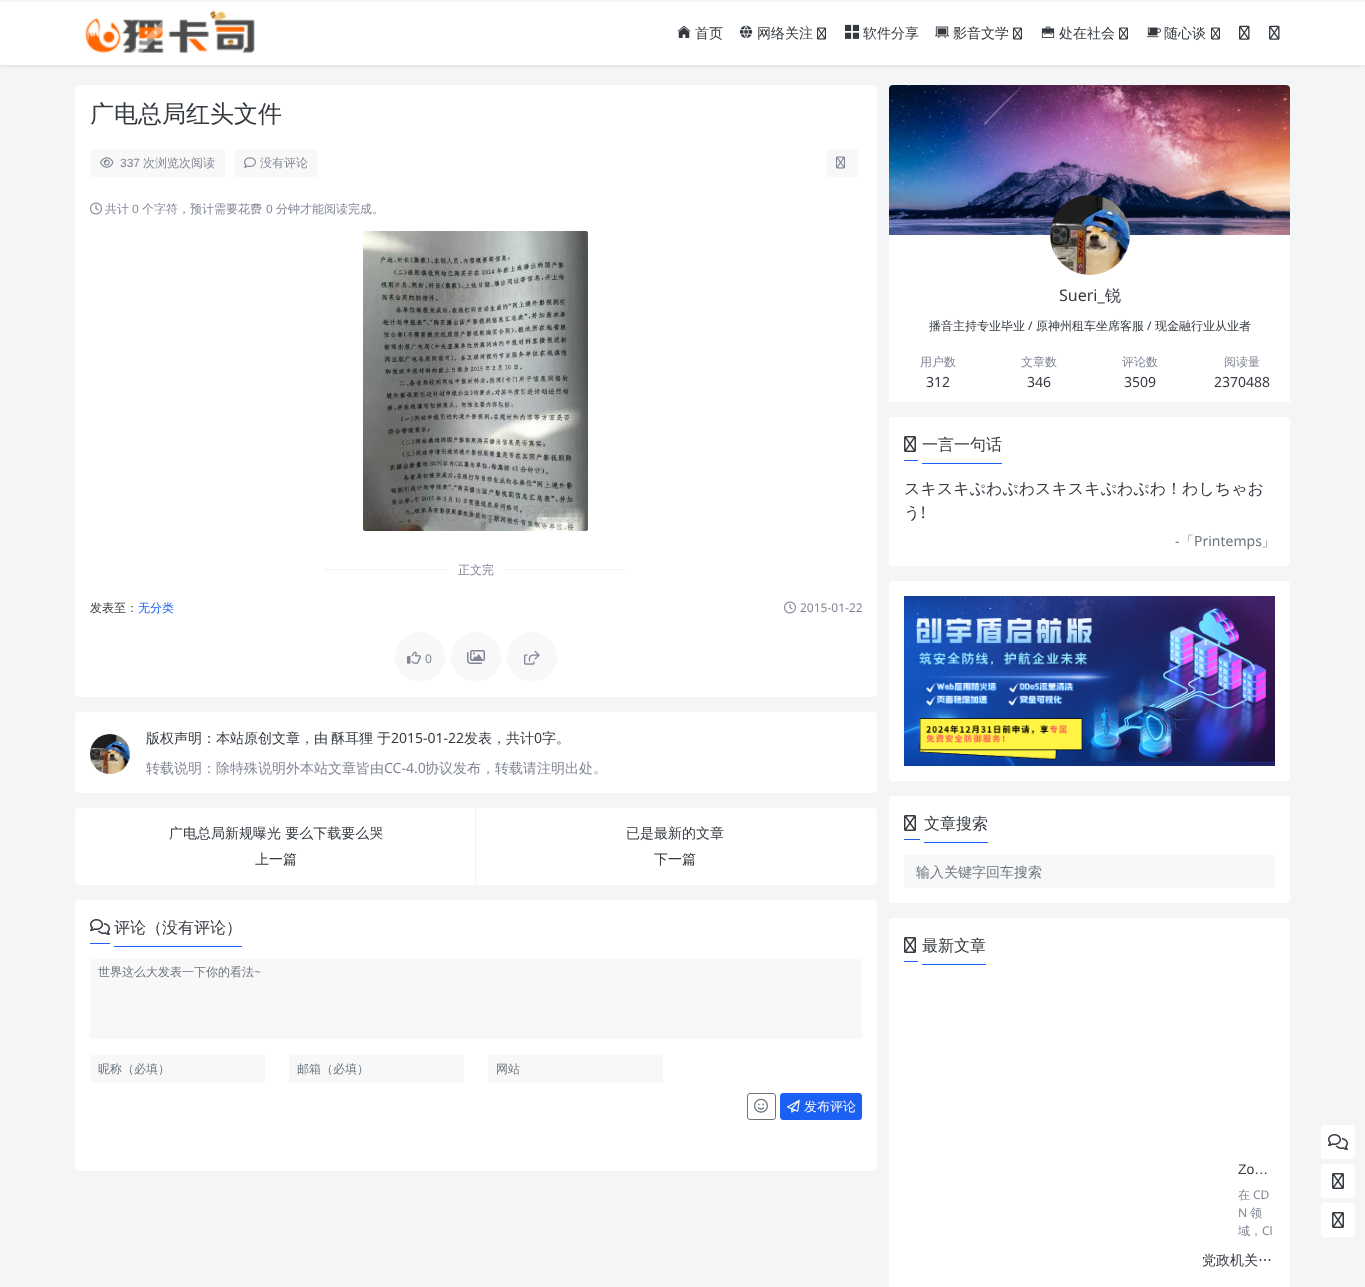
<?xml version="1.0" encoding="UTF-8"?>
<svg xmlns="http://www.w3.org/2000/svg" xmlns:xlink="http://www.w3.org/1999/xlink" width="1365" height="1287">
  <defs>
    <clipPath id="clip1"><rect x="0" y="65" width="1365" height="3" /></clipPath>
    <clipPath id="clip2"><rect x="75" width="190" height="65" /></clipPath>
  </defs>
  <rect width="100%" height="100%" fill="#f3f5f7" />
  <rect width="1365" height="65" fill="#ffffff" />
  <g clip-path="url(#clip1)">
    <rect y="2" width="1365" height="65" fill="#000000" fill-opacity="0.07" filter="blur(2px)" />
  </g>
  <image x="85" y="10" width="170" height="43" xlink:href="image1.png" />
  <g clip-path="url(#clip2)">
    <path d="M 108 75 l 127 -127 l 6 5 l -127 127 z" fill="#ffffff" fill-opacity="0.4" />
  </g>
  <rect width="1365" height="2" rx="1" fill="#f3f5f7" />
  <image x="677" y="25" width="14" height="13" xlink:href="image2.png" />
  <image x="739" y="25" width="14" height="13" xlink:href="image3.png" />
  <image x="817" y="27" width="9" height="13" xlink:href="image4.png" />
  <image x="845" y="24" width="14" height="15" xlink:href="image5.png" />
  <image x="935" y="26" width="14" height="13" xlink:href="image6.png" />
  <image x="1013" y="27" width="9" height="13" xlink:href="image4.png" />
  <image x="1041" y="26" width="14" height="12" xlink:href="image7.png" />
  <image x="1119" y="27" width="9" height="13" xlink:href="image4.png" />
  <image x="1147" y="27" width="14" height="11" xlink:href="image8.png" />
  <image x="1211" y="27" width="9" height="13" xlink:href="image4.png" />
  <image x="1239" y="25" width="11" height="15" xlink:href="image9.png" />
  <image x="1269" y="25" width="11" height="15" xlink:href="image9.png" />
  <rect x="75" y="85" width="802" height="612" rx="4" fill="#ffffff" />
  <rect x="90" y="149" width="135" height="28" rx="2" fill="#f8f8f9" />
  <image x="100" y="157" width="14" height="11" xlink:href="image10.png" />
  <rect x="234" y="149" width="84" height="28" rx="2" fill="#f8f8f9" />
  <image x="244" y="157" width="12" height="11" xlink:href="image11.png" />
  <rect x="826" y="149" width="32" height="28" rx="2" fill="#f8f8f9" />
  <image x="836" y="156" width="9" height="13" xlink:href="image12.png" />
  <image x="90" y="202" width="12" height="13" xlink:href="image13.png" />
  <image x="363" y="231" width="225" height="300" xlink:href="image14.png" />
  <rect x="324" y="569" width="124" height="1" fill="#f3f3f3" />
  <rect x="504" y="569" width="123" height="1" fill="#f3f3f3" />
  <image x="784" y="601" width="12" height="13" xlink:href="image13.png" />
  <circle cx="420" cy="657" r="25" fill="#f8f8f9" />
  <image x="407" y="651" width="14" height="13" xlink:href="image15.png" />
  <circle cx="476" cy="657" r="25" fill="#f8f8f9" />
  <image x="467" y="650" width="18" height="14" xlink:href="image16.png" />
  <circle cx="532" cy="657" r="25" fill="#f8f8f9" />
  <image x="524" y="650" width="16" height="15" xlink:href="image17.png" />
  <rect x="75" y="712" width="802" height="81" rx="4" fill="#ffffff" />
  <image x="90" y="734" width="40" height="40" xlink:href="image18.png" />
  <rect x="75" y="808" width="802" height="77" rx="4" fill="#ffffff" />
  <rect x="475" y="808" width="1" height="77" fill="#f3f3f3" />
  <rect x="75" y="900" width="802" height="271" rx="4" fill="#ffffff" />
  <rect x="90" y="943" width="20" height="1" fill="#1c60f3" />
  <rect x="114" y="946" width="128" height="1" fill="#1c60f3" />
  <image x="90" y="919" width="20" height="16" xlink:href="image19.png" />
  <rect x="90" y="959" width="772" height="80" rx="2" fill="#f8f8f9" />
  <rect x="90" y="1055" width="175" height="28" rx="2" fill="#f8f8f9" />
  <rect x="289" y="1055" width="175" height="28" rx="2" fill="#f8f8f9" />
  <rect x="488" y="1055" width="175" height="28" rx="2" fill="#f8f8f9" />
  <rect x="747.5" y="1093.5" width="28" height="26" rx="2.5" fill="none" stroke="#6c757d" />
  <image x="754" y="1098" width="14" height="15" xlink:href="image20.png" />
  <rect x="780.5" y="1093.5" width="81" height="26" rx="2.5" fill="#1c60f3" stroke="#1c60f3" />
  <image x="787" y="1099" width="13" height="14" xlink:href="image21.png" />
  <rect x="889" y="85" width="401" height="317" fill="#ffffff" />
  <image x="889" y="85" width="401" height="150" xlink:href="image22.png" />
  <image x="1050" y="195" width="80" height="80" xlink:href="image23.png" />
  <rect x="889" y="417" width="401" height="149" rx="4" fill="#ffffff" />
  <rect x="904" y="460" width="14" height="1" fill="#1c60f3" />
  <rect x="922" y="463" width="80" height="1" fill="#1c60f3" />
  <image x="904" y="436" width="12" height="16" xlink:href="image24.png" />
  <rect x="889" y="581" width="401" height="200" rx="4" fill="#ffffff" />
  <image x="904" y="596" width="371" height="170" xlink:href="image25.png" />
  <rect x="889" y="796" width="401" height="107" rx="4" fill="#ffffff" />
  <rect x="904" y="839" width="16" height="1" fill="#1c60f3" />
  <rect x="924" y="842" width="64" height="1" fill="#1c60f3" />
  <image x="904" y="815" width="12" height="16" xlink:href="image24.png" />
  <rect x="904" y="855" width="371" height="33" rx="2" fill="#f8f8f9" />
  <rect x="889" y="918" width="401" height="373" rx="4" fill="#ffffff" />
  <rect x="904" y="961" width="14" height="1" fill="#1c60f3" />
  <rect x="922" y="964" width="64" height="1" fill="#1c60f3" />
  <image x="904" y="937" width="12" height="16" xlink:href="image24.png" />
  <rect x="1321" y="1125" width="34" height="34" rx="4" fill="#ffffff" />
  <image x="1328" y="1134" width="20" height="16" xlink:href="image19.png" />
  <rect x="1321" y="1164" width="34" height="34" rx="4" fill="#ffffff" />
  <image x="1332" y="1173" width="12" height="16" xlink:href="image24.png" />
  <rect x="1321" y="1203" width="34" height="34" rx="4" fill="#ffffff" />
  <image x="1332" y="1212" width="12" height="16" xlink:href="image24.png" />
  <text x="695" y="38" style="font-family: WenQuanYi Zen Hei; font-size: 14px; font-weight: 500; fill: #343a40">首页</text>
  <text x="757" y="38" style="font-family: WenQuanYi Zen Hei; font-size: 14px; font-weight: 500; fill: #343a40">网络关注</text>
  <text x="863" y="38" style="font-family: WenQuanYi Zen Hei; font-size: 14px; font-weight: 500; fill: #343a40">软件分享</text>
  <text x="953" y="38" style="font-family: WenQuanYi Zen Hei; font-size: 14px; font-weight: 500; fill: #343a40">影音文学</text>
  <text x="1059" y="38" style="font-family: WenQuanYi Zen Hei; font-size: 14px; font-weight: 500; fill: #343a40">处在社会</text>
  <text x="1164" y="38" style="font-family: WenQuanYi Zen Hei; font-size: 14px; font-weight: 500; fill: #343a40">随心谈</text>
  <text x="90" y="122" style="font-family: WenQuanYi Zen Hei; font-size: 24px; font-weight: 500; fill: #343a40">广电总局红头文件</text>
  <text x="120" y="167" style="font-family: Liberation Sans; font-size: 12px; fill: #808695">337</text>
  <text x="143" y="167" style="font-family: WenQuanYi Zen Hei; font-size: 12px; font-weight: 500; fill: #808695">次浏览次阅读</text>
  <text x="260" y="167" style="font-family: WenQuanYi Zen Hei; font-size: 12px; font-weight: 500; fill: #808695">没有评论</text>
  <text x="105" y="213" style="font-family: WenQuanYi Zen Hei; font-size: 12px; font-weight: 500; fill: #808695">共计</text>
  <text x="132" y="213" style="font-family: Liberation Sans; font-size: 12px; fill: #808695">0</text>
  <text x="142" y="213" style="font-family: WenQuanYi Zen Hei; font-size: 12px; font-weight: 500; fill: #808695">个字符，预计需要花费</text>
  <text x="266" y="213" style="font-family: Liberation Sans; font-size: 12px; fill: #808695">0</text>
  <text x="276" y="213" style="font-family: WenQuanYi Zen Hei; font-size: 12px; font-weight: 500; fill: #808695">分钟才能阅读完成。</text>
  <text x="458" y="574" style="font-family: WenQuanYi Zen Hei; font-size: 12px; font-weight: 500; fill: #808695">正文完</text>
  <text x="90" y="612" style="font-family: WenQuanYi Zen Hei; font-size: 12px; font-weight: 500; fill: #343a40">发表至：</text>
  <text x="138" y="612" style="font-family: WenQuanYi Zen Hei; font-size: 12px; font-weight: 500; fill: #1c60f3">无分类</text>
  <text x="800" y="612" style="font-family: Noto Sans; font-size: 12px; fill: #808695">2015-01-22</text>
  <text x="425" y="663" style="font-family: Noto Sans; font-size: 12px; fill: #808695">0</text>
  <text x="146" y="743" style="font-family: WenQuanYi Zen Hei; font-size: 14px; font-weight: 500; fill: #343a40">版权声明：本站原创文章，由</text>
  <text x="331" y="743" style="font-family: WenQuanYi Zen Hei; font-size: 14px; font-weight: 500; fill: #343a40">酥耳狸</text>
  <text x="377" y="743" style="font-family: WenQuanYi Zen Hei; font-size: 14px; font-weight: 500; fill: #343a40">于</text>
  <text x="391" y="743" style="font-family: Noto Sans; font-size: 14px; fill: #343a40">2015-01-22</text>
  <text x="464" y="743" style="font-family: WenQuanYi Zen Hei; font-size: 14px; font-weight: 500; fill: #343a40">发表，共计</text>
  <text x="534" y="743" style="font-family: Noto Sans; font-size: 14px; fill: #343a40">0</text>
  <text x="542" y="743" style="font-family: WenQuanYi Zen Hei; font-size: 14px; font-weight: 500; fill: #343a40">字。</text>
  <text x="146" y="773" style="font-family: WenQuanYi Zen Hei; font-size: 14px; font-weight: 500; fill: #808695">转载说明：除特殊说明外本站文章皆由</text>
  <text x="384" y="773" style="font-family: Noto Sans; font-size: 14px; fill: #808695">CC-4.0</text>
  <text x="425" y="773" style="font-family: WenQuanYi Zen Hei; font-size: 14px; font-weight: 500; fill: #808695">协议发布，转载请注明出处。</text>
  <text x="169" y="838" style="font-family: WenQuanYi Zen Hei; font-size: 14px; font-weight: 500; fill: #343a40">广电总局新规曝光 要么下载要么哭</text>
  <text x="255" y="864" style="font-family: WenQuanYi Zen Hei; font-size: 14px; font-weight: 500; fill: #343a40">上一篇</text>
  <text x="626" y="838" style="font-family: WenQuanYi Zen Hei; font-size: 14px; font-weight: 500; fill: #343a40">已是最新的文章</text>
  <text x="654" y="864" style="font-family: WenQuanYi Zen Hei; font-size: 14px; font-weight: 500; fill: #343a40">下一篇</text>
  <text x="114" y="933" style="font-family: WenQuanYi Zen Hei; font-size: 16px; font-weight: 500; fill: #343a40">评论（没有评论）</text>
  <text x="98" y="976" style="font-family: WenQuanYi Zen Hei; font-size: 12px; font-weight: 500; fill: #6c757d">世界这么大发表一下你的看法</text>
  <text x="254" y="976" style="font-family: Noto Sans; font-size: 12px; fill: #6c757d">~</text>
  <text x="98" y="1073" style="font-family: WenQuanYi Zen Hei; font-size: 12px; font-weight: 500; fill: #6c757d">昵称（必填）</text>
  <text x="297" y="1073" style="font-family: WenQuanYi Zen Hei; font-size: 12px; font-weight: 500; fill: #6c757d">邮箱（必填）</text>
  <text x="496" y="1073" style="font-family: WenQuanYi Zen Hei; font-size: 12px; font-weight: 500; fill: #6c757d">网站</text>
  <text x="804" y="1111" style="font-family: WenQuanYi Zen Hei; font-size: 13px; font-weight: 500; fill: #f8f9fa">发布评论</text>
  <text x="1059" y="301" style="font-family: Noto Sans; font-size: 16px; fill: #343a40">Sueri_</text>
  <text x="1105" y="301" style="font-family: WenQuanYi Zen Hei; font-size: 16px; font-weight: 500; fill: #343a40">锐</text>
  <text x="929" y="330" style="font-family: WenQuanYi Zen Hei; font-size: 12px; font-weight: 500; fill: #343a40">播音主持专业毕业</text>
  <text x="1028" y="330" style="font-family: Noto Sans; font-size: 12px; fill: #343a40">/</text>
  <text x="1036" y="330" style="font-family: WenQuanYi Zen Hei; font-size: 12px; font-weight: 500; fill: #343a40">原神州租车坐席客服</text>
  <text x="1147" y="330" style="font-family: Noto Sans; font-size: 12px; fill: #343a40">/</text>
  <text x="1155" y="330" style="font-family: WenQuanYi Zen Hei; font-size: 12px; font-weight: 500; fill: #343a40">现金融行业从业者</text>
  <text x="920" y="366" style="font-family: WenQuanYi Zen Hei; font-size: 12px; font-weight: 500; fill: #808695">用户数</text>
  <text x="926" y="387" style="font-family: Noto Sans; font-size: 14px; fill: #343a40">312</text>
  <text x="1021" y="366" style="font-family: WenQuanYi Zen Hei; font-size: 12px; font-weight: 500; fill: #808695">文章数</text>
  <text x="1027" y="387" style="font-family: Noto Sans; font-size: 14px; fill: #343a40">346</text>
  <text x="1122" y="366" style="font-family: WenQuanYi Zen Hei; font-size: 12px; font-weight: 500; fill: #808695">评论数</text>
  <text x="1124" y="387" style="font-family: Noto Sans; font-size: 14px; fill: #343a40">3509</text>
  <text x="1224" y="366" style="font-family: WenQuanYi Zen Hei; font-size: 12px; font-weight: 500; fill: #808695">阅读量</text>
  <text x="1214" y="387" style="font-family: Noto Sans; font-size: 14px; fill: #343a40">2370488</text>
  <text x="922" y="450" style="font-family: WenQuanYi Zen Hei; font-size: 16px; font-weight: 500; fill: #343a40">一言一句话</text>
  <text x="904" y="494" style="font-family: WenQuanYi Zen Hei; font-size: 16px; font-weight: 500; fill: #343a40">スキスキぷわぷわスキスキぷわぷわ！わしちゃお</text>
  <text x="904" y="518" style="font-family: WenQuanYi Zen Hei; font-size: 16px; font-weight: 500; fill: #343a40">う</text>
  <text x="921" y="518" style="font-family: Noto Sans; font-size: 16px; fill: #343a40">!</text>
  <text x="1175" y="546" style="font-family: Noto Sans; font-size: 14px; fill: #6c757d">-</text>
  <text x="1180" y="546" style="font-family: WenQuanYi Zen Hei; font-size: 14px; font-weight: 500; fill: #6c757d">「</text>
  <text x="1194" y="546" style="font-family: Noto Sans; font-size: 14px; fill: #6c757d">Printemps</text>
  <text x="1261" y="546" style="font-family: WenQuanYi Zen Hei; font-size: 14px; font-weight: 500; fill: #6c757d">」</text>
  <text x="924" y="829" style="font-family: WenQuanYi Zen Hei; font-size: 16px; font-weight: 500; fill: #343a40">文章搜索</text>
  <text x="916" y="877" style="font-family: WenQuanYi Zen Hei; font-size: 14px; font-weight: 500; fill: #6c757d">输入关键字回车搜索</text>
  <text x="922" y="951" style="font-family: WenQuanYi Zen Hei; font-size: 16px; font-weight: 500; fill: #343a40">最新文章</text>
  <text x="1238" y="1174" style="font-family: Liberation Sans; font-size: 14px; fill: #343a40">Zo…</text>
  <text x="1238" y="1199" style="font-family: WenQuanYi Zen Hei; font-size: 12px; font-weight: 500; fill: #808695">在</text>
  <text x="1253" y="1199" style="font-family: Noto Sans; font-size: 12px; fill: #808695">CD</text>
  <text x="1238" y="1217" style="font-family: Noto Sans; font-size: 12px; fill: #808695">N</text>
  <text x="1250" y="1217" style="font-family: WenQuanYi Zen Hei; font-size: 12px; font-weight: 500; fill: #808695">领</text>
  <text x="1238" y="1235" style="font-family: WenQuanYi Zen Hei; font-size: 12px; font-weight: 500; fill: #808695">域，</text>
  <text x="1262" y="1235" style="font-family: Noto Sans; font-size: 12px; fill: #808695">Cl</text>
  <text x="1202" y="1265" style="font-family: WenQuanYi Zen Hei; font-size: 14px; font-weight: 500; fill: #343a40">党政机关…</text>
</svg>
